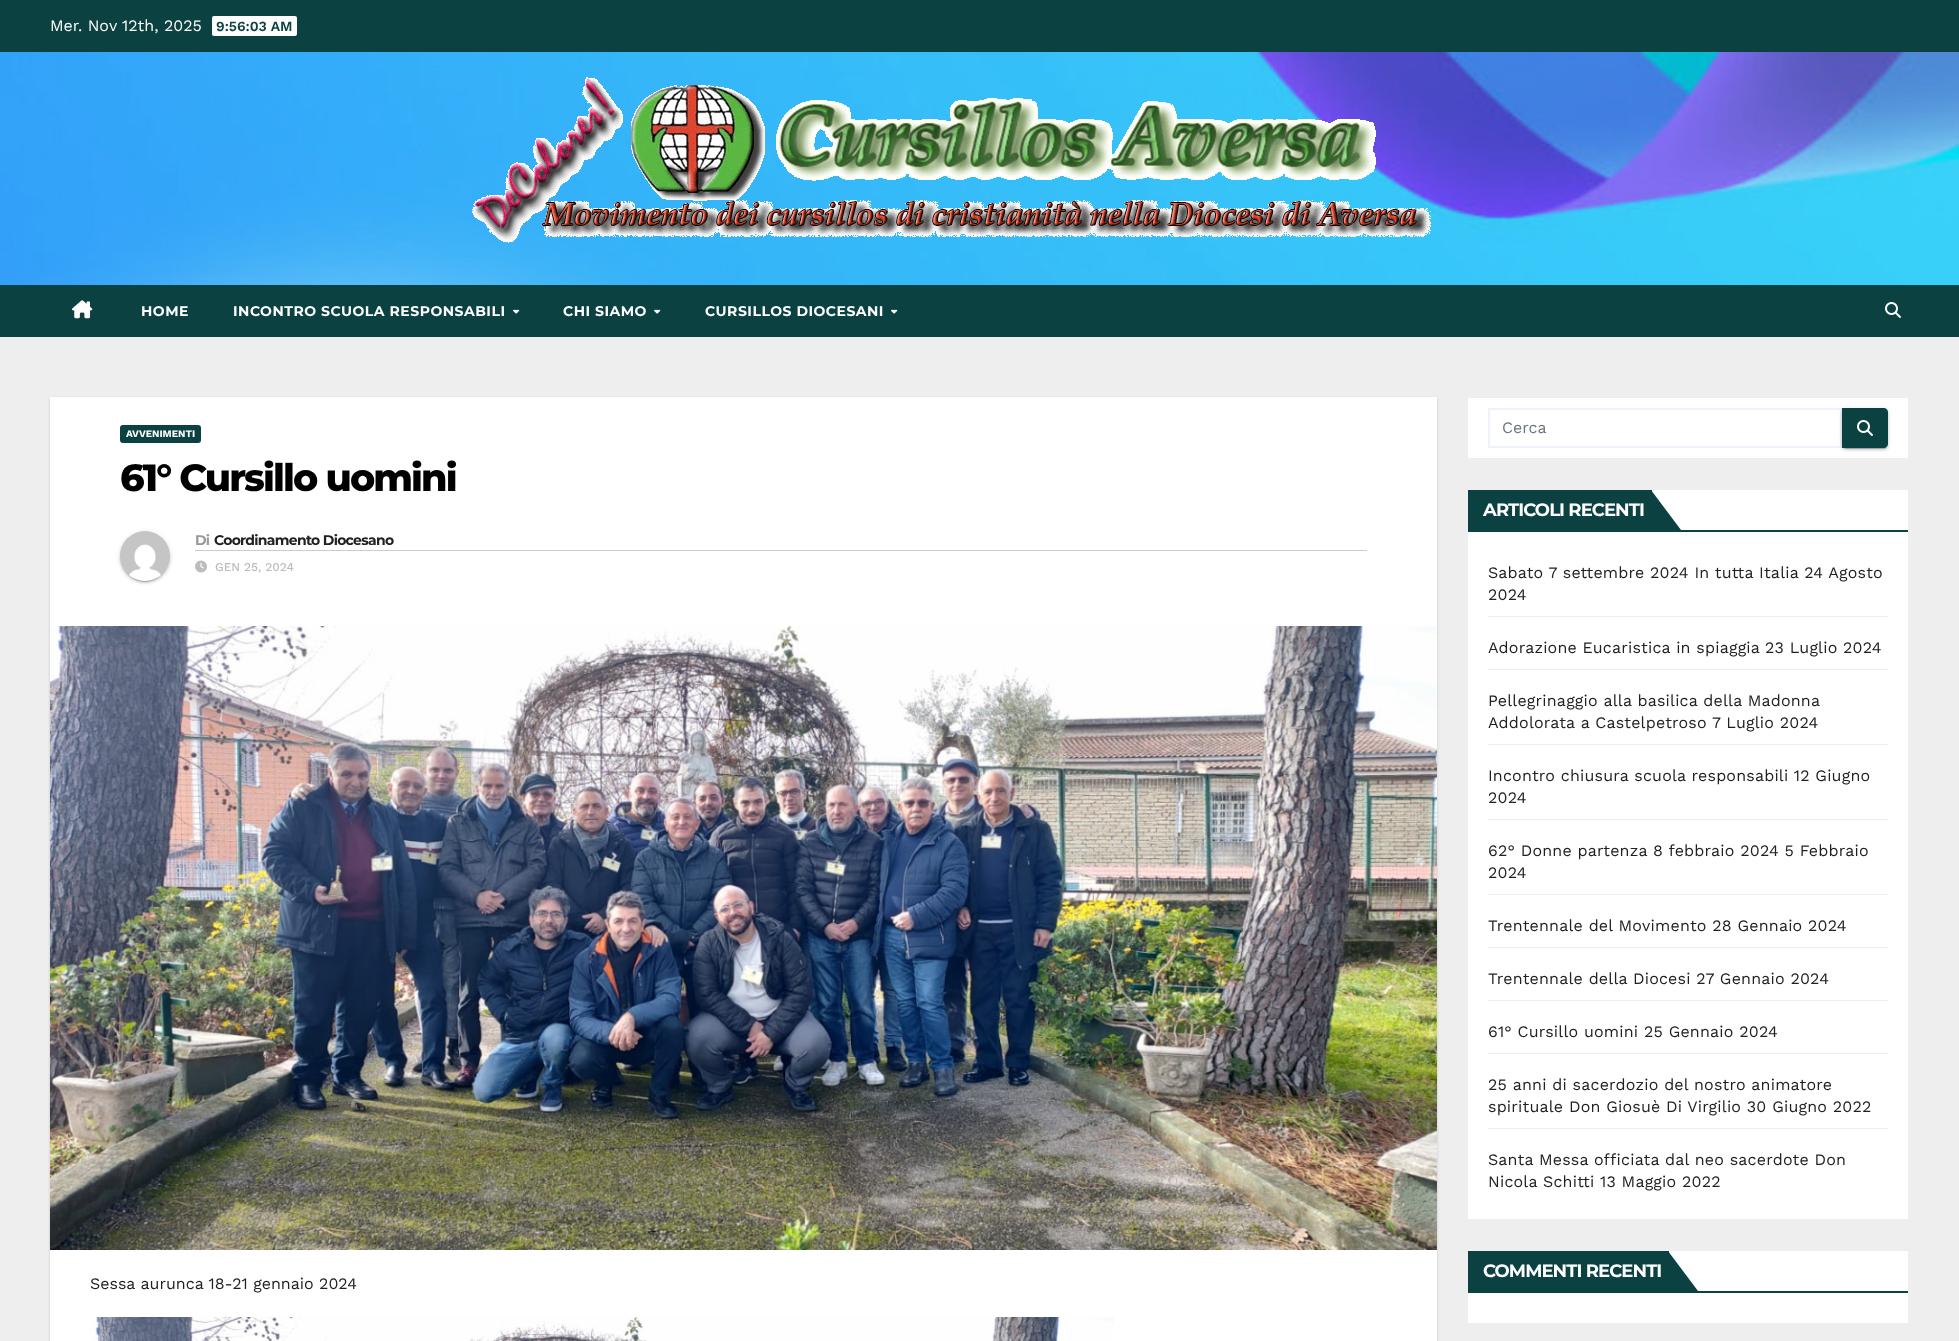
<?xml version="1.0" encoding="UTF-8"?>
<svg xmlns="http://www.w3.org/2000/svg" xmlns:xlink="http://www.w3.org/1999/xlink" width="1959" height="1341">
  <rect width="100%" height="100%" fill="#eeeeee" />
  <rect width="1959" height="52" fill="#0b4141" />
  <rect x="212" y="16" width="85" height="20" rx="2" fill="#ffffff" />
  <image x="0" y="52" width="1959" height="233" xlink:href="image1.png" />
  <image x="472" y="77" width="959" height="166" xlink:href="image2.png" />
  <rect y="285" width="1959" height="52" fill="#0b4141" />
  <image x="72" y="300" width="21" height="19" xlink:href="image3.png" />
  <image x="513" y="309" width="7" height="5" xlink:href="image4.png" />
  <image x="654" y="309" width="7" height="5" xlink:href="image4.png" />
  <image x="891" y="309" width="7" height="5" xlink:href="image4.png" />
  <image x="1885" y="302" width="16" height="16" xlink:href="image5.png" />
  <rect x="50" y="398" width="1387" height="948" fill="#000000" fill-opacity="0.15" filter="blur(1.5px)" />
  <rect x="50" y="397" width="1387" height="944" fill="#ffffff" />
  <rect x="120" y="425" width="81" height="18" rx="3" fill="#0b4141" />
  <rect x="120" y="532" width="50" height="50" rx="25" fill="#000000" fill-opacity="0.12" filter="blur(2.5px)" />
  <rect x="122" y="536" width="46" height="46" rx="23" fill="#000000" fill-opacity="0.2" filter="blur(0.5px)" />
  <rect x="120" y="533" width="50" height="50" rx="25" fill="#000000" fill-opacity="0.14" filter="blur(1px)" />
  <image x="120" y="531" width="50" height="50" xlink:href="image6.png" />
  <rect x="195" y="550" width="1172" height="1" fill="#cccccc" />
  <image x="195" y="560" width="12" height="13" xlink:href="image7.png" />
  <image x="50" y="626" width="1387" height="624" xlink:href="image8.png" />
  <image x="90" y="1317" width="1024" height="24" xlink:href="image9.png" />
  <rect x="1468" y="398" width="440" height="60" fill="#ffffff" />
  <rect x="1489" y="409" width="352" height="38" fill="none" stroke="#eef3fb" stroke-width="2" />
  <rect x="1842" y="409" width="46" height="40" rx="4" fill="#000000" fill-opacity="0.12" filter="blur(2.5px)" />
  <rect x="1844" y="413" width="42" height="36" rx="2" fill="#000000" fill-opacity="0.2" filter="blur(0.5px)" />
  <rect x="1842" y="410" width="46" height="40" rx="4" fill="#000000" fill-opacity="0.14" filter="blur(1px)" />
  <path d="M 1842 408 h 42 c 2 0 4 2 4 4 v 32 c 0 2 -2 4 -4 4 h -42 z" fill="#0b4141" />
  <image x="1857" y="420" width="16" height="16" xlink:href="image5.png" />
  <rect x="1468" y="490" width="440" height="729" fill="#ffffff" />
  <rect x="1468" y="530" width="440" height="2" fill="#0b4141" />
  <rect x="1468" y="490" width="184" height="40" fill="#0b4141" />
  <path d="M 1651 530 v -40 l 30 40 z" fill="#0b4141" />
  <rect x="1488" y="616" width="400" height="1" fill="#eeeeee" />
  <rect x="1488" y="669" width="400" height="1" fill="#eeeeee" />
  <rect x="1488" y="744" width="400" height="1" fill="#eeeeee" />
  <rect x="1488" y="819" width="400" height="1" fill="#eeeeee" />
  <rect x="1488" y="894" width="400" height="1" fill="#eeeeee" />
  <rect x="1488" y="947" width="400" height="1" fill="#eeeeee" />
  <rect x="1488" y="1000" width="400" height="1" fill="#eeeeee" />
  <rect x="1488" y="1053" width="400" height="1" fill="#eeeeee" />
  <rect x="1488" y="1128" width="400" height="1" fill="#eeeeee" />
  <rect x="1468" y="1251" width="440" height="72" fill="#ffffff" />
  <rect x="1468" y="1291" width="440" height="2" fill="#0b4141" />
  <rect x="1468" y="1251" width="201" height="40" fill="#0b4141" />
  <path d="M 1668 1291 v -40 l 30 40 z" fill="#0b4141" />
  <text x="50" y="31" style="font-family: Work Sans; font-size: 16px; fill: #ffffff">Mer. Nov 12th, 2025</text>
  <text x="216" y="31" style="font-family: Work Sans; font-size: 14px; font-weight: 600; fill: #0b4141">9:56:03 AM</text>
  <text x="141" y="316" style="font-family: Montserrat; font-size: 14px; font-weight: bold; letter-spacing: 0.5px; fill: #ffffff">HOME</text>
  <text x="233" y="316" style="font-family: Montserrat; font-size: 14px; font-weight: bold; letter-spacing: 0.5px; fill: #ffffff">INCONTRO SCUOLA RESPONSABILI</text>
  <text x="563" y="316" style="font-family: Montserrat; font-size: 14px; font-weight: bold; letter-spacing: 0.5px; fill: #ffffff">CHI SIAMO</text>
  <text x="705" y="316" style="font-family: Montserrat; font-size: 14px; font-weight: bold; letter-spacing: 0.5px; fill: #ffffff">CURSILLOS DIOCESANI</text>
  <text x="126" y="437" style="font-family: Work Sans; font-size: 10px; font-weight: bold; fill: #ffffff">AVVENIMENTI</text>
  <text x="120" y="491" style="font-family: Montserrat; font-size: 38px; font-weight: 800; letter-spacing: -1.9px; fill: #000000">61° Cursillo uomini</text>
  <text x="195" y="545" style="font-family: Montserrat; font-size: 14px; font-weight: bold; letter-spacing: -0.7px; fill: #999999">Di</text>
  <text x="214" y="545" style="font-family: Montserrat; font-size: 14px; font-weight: bold; letter-spacing: -0.7px; fill: #212121">Coordinamento Diocesano</text>
  <text x="215" y="571" style="font-family: Work Sans; font-size: 12px; font-weight: 500; fill: #bdbdbd">GEN 25, 2024</text>
  <text x="90" y="1289" style="font-family: Work Sans; font-size: 16px; fill: #212121">Sessa aurunca 18-21 gennaio 2024</text>
  <text x="1502" y="433" style="font-family: Work Sans; font-size: 16px; fill: #6c757d">Cerca</text>
  <text x="1483" y="516" style="font-family: Montserrat; font-size: 18px; font-weight: bold; letter-spacing: -0.9px; fill: #ffffff">ARTICOLI RECENTI</text>
  <text x="1488" y="578" style="font-family: Work Sans; font-size: 16px; letter-spacing: 0.2px; fill: #212121">Sabato 7 settembre 2024 In tutta Italia 24 Agosto</text>
  <text x="1488" y="600" style="font-family: Work Sans; font-size: 16px; letter-spacing: 0.2px; fill: #212121">2024</text>
  <text x="1488" y="653" style="font-family: Work Sans; font-size: 16px; letter-spacing: 0.2px; fill: #212121">Adorazione Eucaristica in spiaggia</text>
  <text x="1765" y="653" style="font-family: Work Sans; font-size: 16px; letter-spacing: 0.2px; fill: #212121">23 Luglio 2024</text>
  <text x="1488" y="706" style="font-family: Work Sans; font-size: 16px; letter-spacing: 0.2px; fill: #212121">Pellegrinaggio alla basilica della Madonna</text>
  <text x="1488" y="728" style="font-family: Work Sans; font-size: 16px; letter-spacing: 0.2px; fill: #212121">Addolorata a Castelpetroso</text>
  <text x="1712" y="728" style="font-family: Work Sans; font-size: 16px; letter-spacing: 0.2px; fill: #212121">7 Luglio 2024</text>
  <text x="1488" y="781" style="font-family: Work Sans; font-size: 16px; letter-spacing: 0.2px; fill: #212121">Incontro chiusura scuola responsabili 12 Giugno</text>
  <text x="1488" y="803" style="font-family: Work Sans; font-size: 16px; letter-spacing: 0.2px; fill: #212121">2024</text>
  <text x="1488" y="856" style="font-family: Work Sans; font-size: 16px; letter-spacing: 0.2px; fill: #212121">62° Donne partenza 8 febbraio 2024 5 Febbraio</text>
  <text x="1488" y="878" style="font-family: Work Sans; font-size: 16px; letter-spacing: 0.2px; fill: #212121">2024</text>
  <text x="1488" y="931" style="font-family: Work Sans; font-size: 16px; letter-spacing: 0.2px; fill: #212121">Trentennale del Movimento 28 Gennaio 2024</text>
  <text x="1488" y="984" style="font-family: Work Sans; font-size: 16px; letter-spacing: 0.2px; fill: #212121">Trentennale della Diocesi 27 Gennaio 2024</text>
  <text x="1488" y="1037" style="font-family: Work Sans; font-size: 16px; letter-spacing: 0.2px; fill: #212121">61° Cursillo uomini 25 Gennaio 2024</text>
  <text x="1488" y="1090" style="font-family: Work Sans; font-size: 16px; letter-spacing: 0.2px; fill: #212121">25 anni di sacerdozio del nostro animatore</text>
  <text x="1488" y="1112" style="font-family: Work Sans; font-size: 16px; letter-spacing: 0.2px; fill: #212121">spirituale Don Giosuè Di Virgilio 30 Giugno 2022</text>
  <text x="1488" y="1165" style="font-family: Work Sans; font-size: 16px; letter-spacing: 0.2px; fill: #212121">Santa Messa officiata dal neo sacerdote Don</text>
  <text x="1488" y="1187" style="font-family: Work Sans; font-size: 16px; letter-spacing: 0.2px; fill: #212121">Nicola Schitti</text>
  <text x="1600" y="1187" style="font-family: Work Sans; font-size: 16px; letter-spacing: 0.2px; fill: #212121">13 Maggio 2022</text>
  <text x="1483" y="1277" style="font-family: Montserrat; font-size: 18px; font-weight: bold; letter-spacing: -0.9px; fill: #ffffff">COMMENTI RECENTI</text>
</svg>
